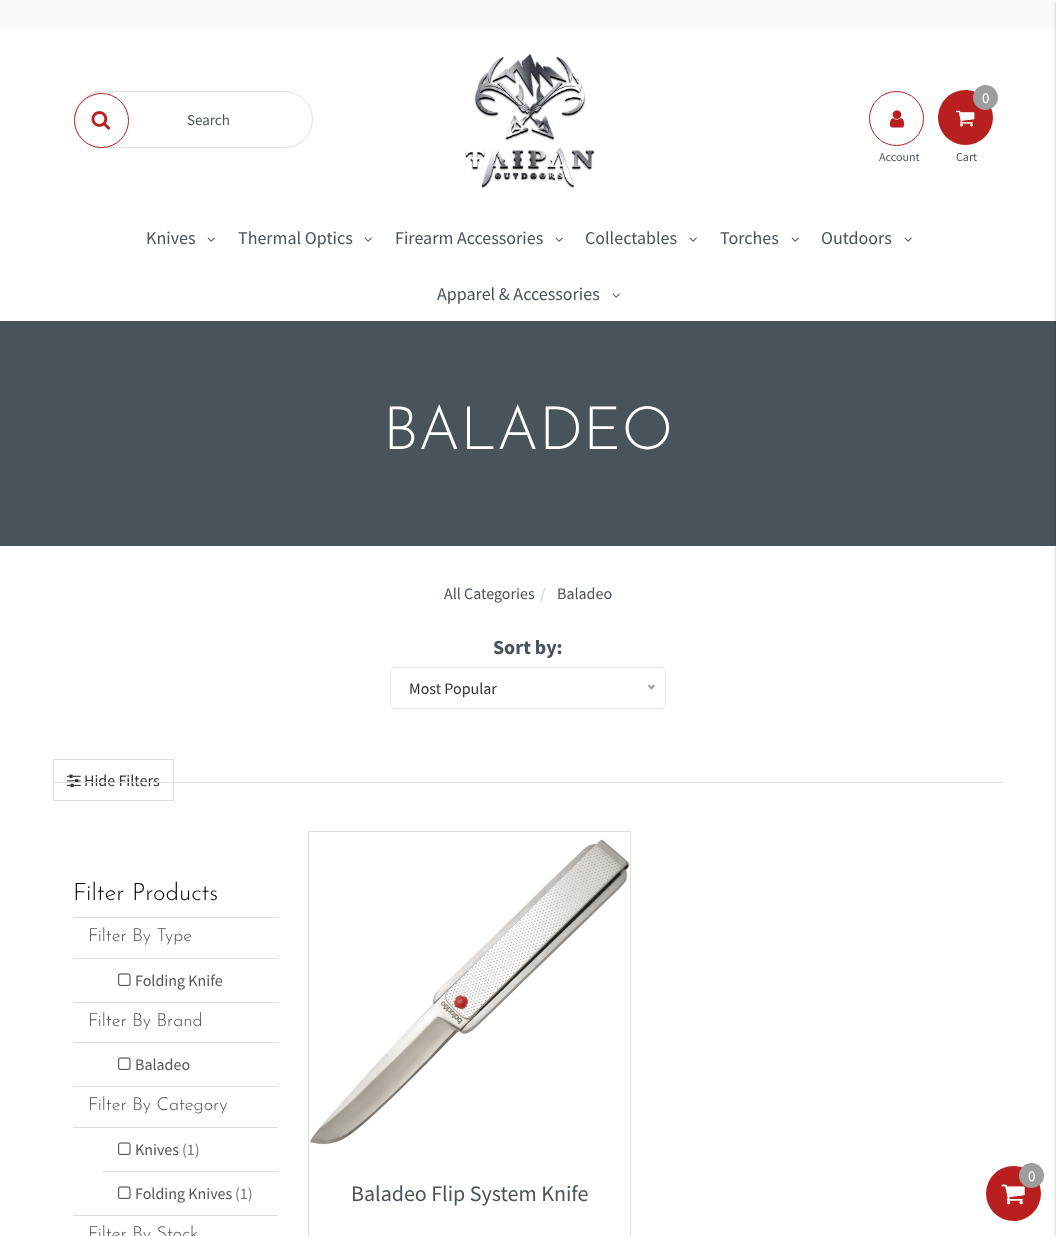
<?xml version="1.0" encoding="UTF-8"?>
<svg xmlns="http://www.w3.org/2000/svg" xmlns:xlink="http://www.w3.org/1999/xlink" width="1056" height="1236">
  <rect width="100%" height="100%" fill="#ffffff" />
  <rect width="1056" height="30" fill="#f9f9f9" />
  <rect x="74.5" y="91.5" width="238" height="56" rx="28" fill="none" stroke="#dedede" />
  <circle cx="101.5" cy="120.5" r="27" fill="#ffffff" stroke="#ba1f1f" />
  <image x="91" y="111" width="20" height="19" xlink:href="image1.png" />
  <image x="465" y="54" width="130" height="135" xlink:href="image2.png" />
  <circle cx="896.5" cy="118.5" r="27" fill="none" stroke="#ba1f1f" />
  <image x="889" y="110" width="16" height="18" xlink:href="image3.png" />
  <circle cx="965.5" cy="117.5" r="27.5" fill="#ba1f1f" />
  <circle cx="985.5" cy="97.5" r="12.5" fill="#9e9e9e" />
  <image x="955" y="110" width="20" height="17" xlink:href="image4.png" />
  <image x="207" y="237" width="8" height="5" xlink:href="image5.png" />
  <image x="364" y="237" width="8" height="5" xlink:href="image5.png" />
  <image x="555" y="237" width="8" height="5" xlink:href="image5.png" />
  <image x="689" y="237" width="8" height="5" xlink:href="image5.png" />
  <image x="791" y="237" width="8" height="5" xlink:href="image5.png" />
  <image x="904" y="237" width="8" height="5" xlink:href="image5.png" />
  <image x="612" y="293" width="8" height="5" xlink:href="image5.png" />
  <rect y="321" width="1056" height="225" fill="#49535a" />
  <rect x="390.5" y="667.5" width="275" height="41" rx="4.5" fill="none" stroke="#e8e8e8" />
  <path d="M 653.5 684.5 l 1.5 1.5 l -3.5 3.5 l -1.5 -1.5 z" fill="#999999" />
  <path d="M 649 684.5 l 3.5 3.5 l -1 1.5 l -3.5 -3.5 z" fill="#999999" />
  <rect x="53.5" y="759.5" width="120" height="41" fill="none" stroke="#dedede" />
  <image x="67" y="774" width="14" height="14" xlink:href="image6.png" />
  <rect x="73" y="917" width="205" height="1" fill="#dddddd" />
  <rect x="73" y="958" width="205" height="1" fill="#dddddd" />
  <image x="118" y="973" width="13" height="13" xlink:href="image7.png" />
  <rect x="73" y="1002" width="205" height="1" fill="#dddddd" />
  <rect x="73" y="1042" width="205" height="1" fill="#dddddd" />
  <image x="118" y="1057" width="13" height="13" xlink:href="image7.png" />
  <rect x="73" y="1086" width="205" height="1" fill="#dddddd" />
  <rect x="73" y="1127" width="205" height="1" fill="#dddddd" />
  <image x="118" y="1142" width="13" height="13" xlink:href="image7.png" />
  <rect x="103" y="1171" width="175" height="1" fill="#dddddd" />
  <image x="118" y="1186" width="13" height="13" xlink:href="image7.png" />
  <rect x="73" y="1215" width="205" height="1" fill="#dddddd" />
  <rect x="308.5" y="831.5" width="322" height="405" fill="none" stroke="#dedede" />
  <image x="309" y="839" width="321" height="306" xlink:href="image8.png" />
  <rect x="1056" y="1" width="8" height="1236" fill="#000000" fill-opacity="0.12" filter="blur(2.5px)" />
  <rect x="1056" y="2" width="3" height="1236" fill="#000000" fill-opacity="0.14" filter="blur(1px)" />
  <circle cx="1013.5" cy="1193.5" r="27.5" fill="#ba1f1f" />
  <image x="1001" y="1184" width="24" height="21" xlink:href="image9.png" />
  <circle cx="1031.5" cy="1175.5" r="12.5" fill="#9e9e9e" />
  <text x="187" y="125" style="font-family: Source Sans Pro; font-size: 15px; fill: #49535a">Search</text>
  <text x="879" y="161" style="font-family: Source Sans Pro; font-size: 12px; fill: #49535a">Account</text>
  <text x="982" y="103" style="font-family: Source Sans Pro; font-size: 15px; fill: #ffffff">0</text>
  <text x="956" y="161" style="font-family: Source Sans Pro; font-size: 12px; fill: #49535a">Cart</text>
  <text x="146" y="244" style="font-family: Source Sans Pro; font-size: 18px; fill: #49535a">Knives</text>
  <text x="238" y="244" style="font-family: Source Sans Pro; font-size: 18px; fill: #49535a">Thermal Optics</text>
  <text x="395" y="244" style="font-family: Source Sans Pro; font-size: 18px; fill: #49535a">Firearm Accessories</text>
  <text x="585" y="244" style="font-family: Source Sans Pro; font-size: 18px; fill: #49535a">Collectables</text>
  <text x="720" y="244" style="font-family: Source Sans Pro; font-size: 18px; fill: #49535a">Torches</text>
  <text x="821" y="244" style="font-family: Source Sans Pro; font-size: 18px; fill: #49535a">Outdoors</text>
  <text x="437" y="300" style="font-family: Source Sans Pro; font-size: 18px; fill: #49535a">Apparel &amp; Accessories</text>
  <text x="383" y="449" style="font-family: Josefin Sans; font-size: 60px; font-weight: 100; fill: #ffffff">BALADEO</text>
  <text x="444" y="599" style="font-family: Source Sans Pro; font-size: 16px; fill: #49535a">All Categories</text>
  <text x="540" y="599" style="font-family: Source Sans Pro; font-size: 16px; fill: #cccccc">/</text>
  <text x="557" y="599" style="font-family: Source Sans Pro; font-size: 16px; fill: #49535a">Baladeo</text>
  <text x="493" y="654" style="font-family: Source Sans Pro; font-size: 20px; font-weight: bold; fill: #49535a">Sort by:</text>
  <text x="409" y="694" style="font-family: Source Sans Pro; font-size: 16px; fill: #333333">Most Popular</text>
  <text x="84" y="786" style="font-family: Source Sans Pro; font-size: 16px; fill: #333333">Hide Filters</text>
  <rect x="53" y="782" width="950" height="1" fill="#dedede" />
  <text x="73" y="900" style="font-family: Josefin Sans; font-size: 24px; font-weight: 100; fill: #000000">Filter Products</text>
  <text x="88" y="941" style="font-family: Josefin Sans; font-size: 18px; font-weight: 100; fill: #4e4e4e">Filter By Type</text>
  <text x="135" y="986" style="font-family: Source Sans Pro; font-size: 16px; fill: #555555">Folding Knife</text>
  <text x="88" y="1026" style="font-family: Josefin Sans; font-size: 18px; font-weight: 100; fill: #4e4e4e">Filter By Brand</text>
  <text x="135" y="1070" style="font-family: Source Sans Pro; font-size: 16px; fill: #555555">Baladeo</text>
  <text x="88" y="1110" style="font-family: Josefin Sans; font-size: 18px; font-weight: 100; fill: #4e4e4e">Filter By Category</text>
  <text x="135" y="1155" style="font-family: Source Sans Pro; font-size: 16px; fill: #555555">Knives</text>
  <text x="182" y="1155" style="font-family: Source Sans Pro; font-size: 16px; fill: #777777">(1)</text>
  <text x="135" y="1199" style="font-family: Source Sans Pro; font-size: 16px; fill: #555555">Folding Knives</text>
  <text x="235" y="1199" style="font-family: Source Sans Pro; font-size: 16px; fill: #777777">(1)</text>
  <text x="88" y="1239" style="font-family: Josefin Sans; font-size: 18px; font-weight: 100; fill: #4e4e4e">Filter By Stock</text>
  <text x="351" y="1201" style="font-family: Source Sans Pro; font-size: 22px; fill: #49535a">Baladeo Flip System Knife</text>
  <text x="1028" y="1181" style="font-family: Source Sans Pro; font-size: 15px; fill: #ffffff">0</text>
</svg>
